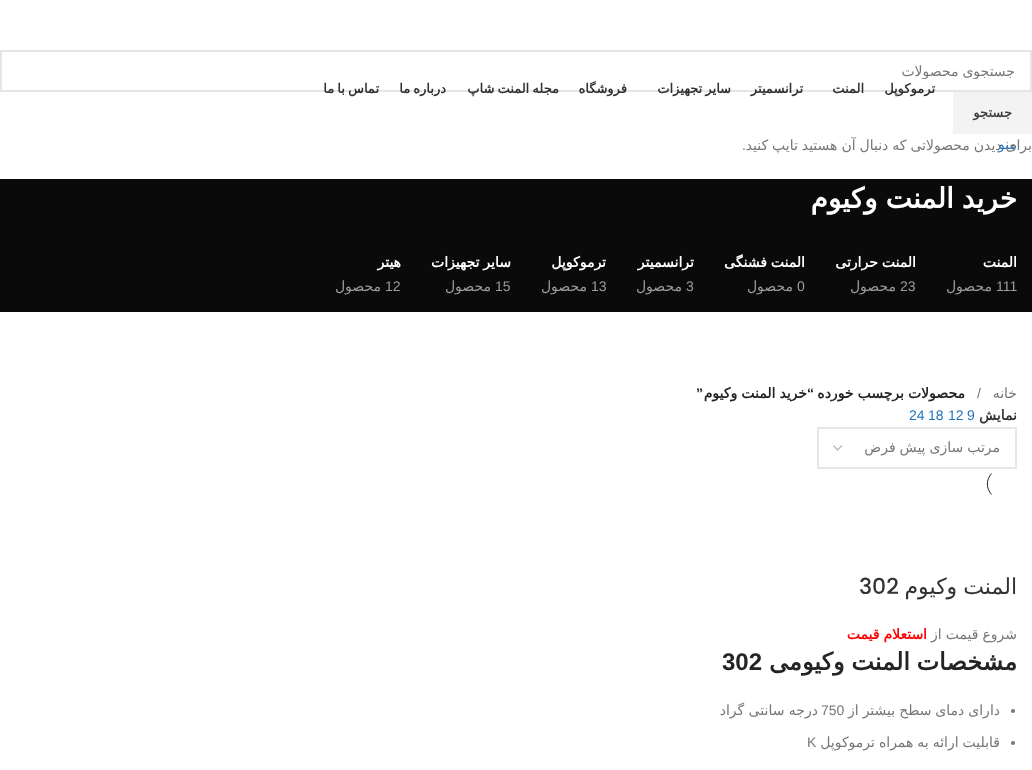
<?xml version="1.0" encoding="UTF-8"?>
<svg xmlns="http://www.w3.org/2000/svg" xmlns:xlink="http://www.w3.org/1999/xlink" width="1032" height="770">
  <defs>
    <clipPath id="clip1"><rect x="17" y="63" width="998" height="16" /></clipPath>
    <clipPath id="clip2"><rect x="849" y="436" width="151" height="23" /></clipPath>
  </defs>
  <rect width="100%" height="100%" fill="#ffffff" />
  <rect x="953" y="92" width="79" height="42" fill="#f3f3f3" />
  <rect y="179" width="1032" height="133" fill="#0a0a0a" />
  <path d="M 833.5 445.5 l 4 4.5 l 4.5 -4.5" fill="none" stroke="#bbbbbb" stroke-width="1.4" />
  <rect x="818" y="428" width="198" height="40" fill="none" stroke="#e6e6e6" stroke-width="2" />
  <path d="M 991.5 494.5 c -5.5 -6 -5.5 -15 0 -21" fill="none" stroke="#242424" />
  <circle cx="1013" cy="711" r="2" fill="#777777" />
  <circle cx="1013" cy="743" r="2" fill="#777777" />
  <text x="1012" y="117" style="font-family: DejaVu Sans; font-size: 13px; font-weight: bold; direction: rtl; fill: #3e3e3e">جستجو</text>
  <text x="746" y="150" style="font-family: Liberation Sans; font-size: 14px; direction: rtl; fill: #767676">.</text>
  <text x="935" y="93" style="font-family: DejaVu Sans; font-size: 13px; font-weight: bold; direction: rtl; fill: #333333">ترموکوپل</text>
  <text x="864" y="93" style="font-family: DejaVu Sans; font-size: 13px; font-weight: bold; direction: rtl; fill: #333333">المنت</text>
  <text x="803" y="93" style="font-family: DejaVu Sans; font-size: 13px; font-weight: bold; direction: rtl; fill: #333333">ترانسمیتر</text>
  <text x="731" y="93" word-spacing="-1" style="font-family: DejaVu Sans; font-size: 13px; font-weight: bold; direction: rtl; fill: #333333">سایر تجهیزات</text>
  <text x="627" y="93" style="font-family: DejaVu Sans; font-size: 13px; font-weight: bold; direction: rtl; fill: #333333">فروشگاه</text>
  <text x="559" y="93" word-spacing="-1" style="font-family: DejaVu Sans; font-size: 13px; font-weight: bold; direction: rtl; fill: #333333">مجله المنت شاپ</text>
  <text x="446" y="93" word-spacing="-1" style="font-family: DejaVu Sans; font-size: 13px; font-weight: bold; direction: rtl; fill: #333333">درباره ما</text>
  <text x="379" y="93" word-spacing="-1" style="font-family: DejaVu Sans; font-size: 13px; font-weight: bold; direction: rtl; fill: #333333">تماس با ما</text>
  <rect x="1" y="51" width="1030" height="40" fill="none" stroke="#000000" stroke-opacity="0.1" stroke-width="2" />
  <g clip-path="url(#clip1)">
    <text x="1015" y="76" word-spacing="-0.5" style="font-family: DejaVu Sans; font-size: 14px; direction: rtl; fill: #767676">جستجوی محصولات</text>
  </g>
  <text x="1017" y="149" style="font-family: DejaVu Sans; font-size: 14px; direction: rtl; fill: #1e73be">منو</text>
  <text x="1032" y="150" word-spacing="-0.5" style="font-family: DejaVu Sans; font-size: 14px; direction: rtl; fill: #767676">برای دیدن محصولاتی که دنبال آن هستید تایپ کنید</text>
  <text x="1017" y="208" word-spacing="-1" style="font-family: DejaVu Sans; font-size: 28px; font-weight: bold; direction: rtl; fill: #ffffff">خرید المنت وکیوم</text>
  <text x="1017" y="267" style="font-family: DejaVu Sans; font-size: 14px; font-weight: bold; direction: rtl; fill: #ffffff">المنت</text>
  <text x="996" y="291" style="font-family: Liberation Sans; font-size: 14px; fill: #9d9d9d">111</text>
  <text x="992" y="291" style="font-family: DejaVu Sans; font-size: 14px; direction: rtl; fill: #9d9d9d">محصول</text>
  <text x="916" y="267" word-spacing="-0.5" style="font-family: DejaVu Sans; font-size: 14px; font-weight: bold; direction: rtl; fill: #ffffff">المنت حرارتی</text>
  <text x="900" y="291" style="font-family: Liberation Sans; font-size: 14px; fill: #9d9d9d">23</text>
  <text x="896" y="291" style="font-family: DejaVu Sans; font-size: 14px; direction: rtl; fill: #9d9d9d">محصول</text>
  <text x="805" y="267" word-spacing="-0.5" style="font-family: DejaVu Sans; font-size: 14px; font-weight: bold; direction: rtl; fill: #ffffff">المنت فشنگی</text>
  <text x="797" y="291" style="font-family: Liberation Sans; font-size: 14px; fill: #9d9d9d">0</text>
  <text x="793" y="291" style="font-family: DejaVu Sans; font-size: 14px; direction: rtl; fill: #9d9d9d">محصول</text>
  <text x="694" y="267" style="font-family: DejaVu Sans; font-size: 14px; font-weight: bold; direction: rtl; fill: #ffffff">ترانسمیتر</text>
  <text x="686" y="291" style="font-family: Liberation Sans; font-size: 14px; fill: #9d9d9d">3</text>
  <text x="682" y="291" style="font-family: DejaVu Sans; font-size: 14px; direction: rtl; fill: #9d9d9d">محصول</text>
  <text x="606" y="267" style="font-family: DejaVu Sans; font-size: 14px; font-weight: bold; direction: rtl; fill: #ffffff">ترموکوپل</text>
  <text x="591" y="291" style="font-family: Liberation Sans; font-size: 14px; fill: #9d9d9d">13</text>
  <text x="587" y="291" style="font-family: DejaVu Sans; font-size: 14px; direction: rtl; fill: #9d9d9d">محصول</text>
  <text x="511" y="267" word-spacing="-0.5" style="font-family: DejaVu Sans; font-size: 14px; font-weight: bold; direction: rtl; fill: #ffffff">سایر تجهیزات</text>
  <text x="495" y="291" style="font-family: Liberation Sans; font-size: 14px; fill: #9d9d9d">15</text>
  <text x="491" y="291" style="font-family: DejaVu Sans; font-size: 14px; direction: rtl; fill: #9d9d9d">محصول</text>
  <text x="401" y="267" style="font-family: DejaVu Sans; font-size: 14px; font-weight: bold; direction: rtl; fill: #ffffff">هیتر</text>
  <text x="385" y="291" style="font-family: Liberation Sans; font-size: 14px; fill: #9d9d9d">12</text>
  <text x="381" y="291" style="font-family: DejaVu Sans; font-size: 14px; direction: rtl; fill: #9d9d9d">محصول</text>
  <text x="1017" y="398" style="font-family: DejaVu Sans; font-size: 14px; direction: rtl; fill: #767676">خانه</text>
  <text x="977" y="398" style="font-family: Liberation Sans; font-size: 14px; fill: #767676">/</text>
  <text x="965" y="398" word-spacing="-0.5" style="font-family: DejaVu Sans; font-size: 14px; font-weight: bold; direction: rtl; fill: #242424">محصولات برچسب خورده</text>
  <text x="814" y="398" style="font-family: Liberation Sans; font-size: 14px; font-weight: bold; direction: rtl; fill: #242424">“</text>
  <text x="807" y="398" word-spacing="-0.5" style="font-family: DejaVu Sans; font-size: 14px; font-weight: bold; direction: rtl; fill: #242424">خرید المنت وکیوم</text>
  <text x="703" y="398" style="font-family: Liberation Sans; font-size: 14px; font-weight: bold; direction: rtl; fill: #242424">”</text>
  <text x="1017" y="420" style="font-family: DejaVu Sans; font-size: 14px; font-weight: bold; direction: rtl; fill: #333333">نمایش</text>
  <text x="967" y="420" style="font-family: Liberation Sans; font-size: 14px; fill: #1e73be">9</text>
  <text x="948" y="420" style="font-family: Liberation Sans; font-size: 14px; fill: #1e73be">12</text>
  <text x="928" y="420" style="font-family: Liberation Sans; font-size: 14px; fill: #1e73be">18</text>
  <text x="909" y="420" style="font-family: Liberation Sans; font-size: 14px; fill: #1e73be">24</text>
  <g clip-path="url(#clip2)">
    <text x="1000" y="452" word-spacing="-0.5" style="font-family: DejaVu Sans; font-size: 14px; direction: rtl; fill: #767676">مرتب سازی پیش فرض</text>
  </g>
  <text x="1017" y="594" word-spacing="-1" style="font-family: DejaVu Sans; font-size: 22px; direction: rtl; fill: #333333">المنت وکیوم</text>
  <text x="859" y="594" style="font-family: Poppins; font-size: 22px; font-weight: 500; fill: #333333">302</text>
  <text x="1017" y="639" word-spacing="-0.5" style="font-family: DejaVu Sans; font-size: 14px; direction: rtl; fill: #767676">شروع قیمت از</text>
  <text x="927" y="639" word-spacing="-0.5" style="font-family: DejaVu Sans; font-size: 14px; font-weight: bold; direction: rtl; fill: #ff0000">استعلام قیمت</text>
  <text x="1017" y="670" word-spacing="-1" style="font-family: DejaVu Sans; font-size: 24px; font-weight: bold; direction: rtl; fill: #242424">مشخصات المنت وکیومی</text>
  <text x="722" y="670" style="font-family: Liberation Sans; font-size: 24px; font-weight: bold; fill: #242424">302</text>
  <text x="1000" y="715" word-spacing="-0.5" style="font-family: DejaVu Sans; font-size: 14px; direction: rtl; fill: #767676">دارای دمای سطح بیشتر از</text>
  <text x="821" y="715" style="font-family: Liberation Sans; font-size: 14px; fill: #767676">750</text>
  <text x="818" y="715" style="font-family: DejaVu Sans; font-size: 14px; direction: rtl; fill: #767676">درجه سانتی گراد</text>
  <text x="1000" y="747" word-spacing="-0.5" style="font-family: DejaVu Sans; font-size: 14px; direction: rtl; fill: #767676">قابلیت ارائه به همراه ترموکوپل</text>
  <text x="807" y="747" style="font-family: Liberation Sans; font-size: 14px; fill: #767676">K</text>
</svg>
